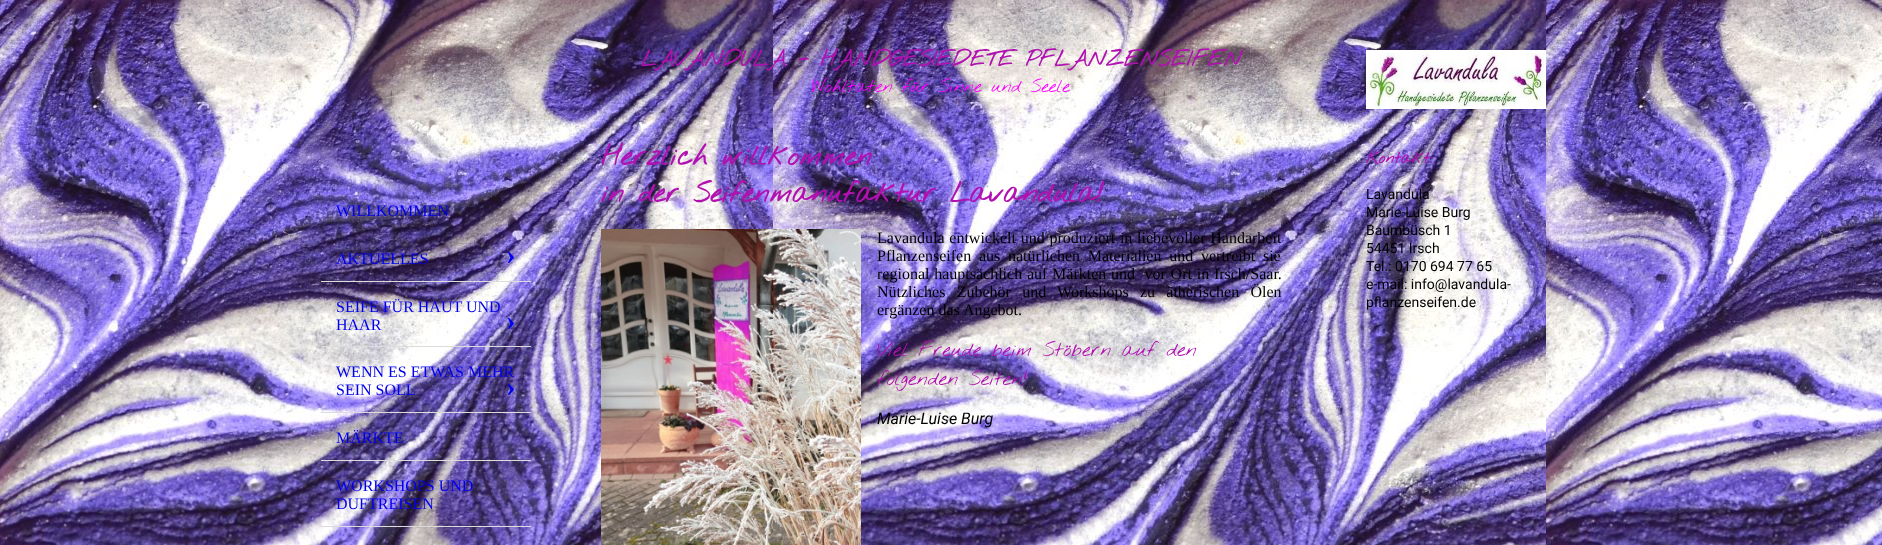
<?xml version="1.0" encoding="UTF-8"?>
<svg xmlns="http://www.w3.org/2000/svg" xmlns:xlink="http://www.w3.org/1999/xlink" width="1882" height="545">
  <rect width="100%" height="100%" fill="#ffffff" />
  <image x="0" y="0" width="1882" height="545" xlink:href="image1.png" />
  <rect x="321" y="281" width="210" height="1" fill="#dcdcdc" />
  <rect x="321" y="346" width="210" height="1" fill="#dcdcdc" />
  <rect x="321" y="412" width="210" height="1" fill="#dcdcdc" />
  <rect x="321" y="460" width="210" height="1" fill="#dcdcdc" />
  <rect x="321" y="526" width="210" height="1" fill="#dcdcdc" />
  <image x="601" y="229" width="260" height="316" xlink:href="image2.png" />
  <image x="1366" y="50" width="180" height="59" xlink:href="image3.png" />
  <text x="336" y="216" style="font-family: Liberation Serif; font-size: 16px; fill: #0000ee">WILLKOMMEN</text>
  <text x="336" y="264" style="font-family: Liberation Serif; font-size: 16px; fill: #0000ee">AKTUELLES</text>
  <text x="506" y="264" style="font-family: Liberation Serif; font-size: 29px; font-weight: bold; fill: #0000ee">›</text>
  <text x="336" y="312" style="font-family: Liberation Serif; font-size: 16px; fill: #0000ee">SEIFE FÜR HAUT UND</text>
  <text x="336" y="330" style="font-family: Liberation Serif; font-size: 16px; fill: #0000ee">HAAR</text>
  <text x="506" y="330" style="font-family: Liberation Serif; font-size: 29px; font-weight: bold; fill: #0000ee">›</text>
  <text x="336" y="377" style="font-family: Liberation Serif; font-size: 16px; fill: #0000ee">WENN ES ETWAS MEHR</text>
  <text x="336" y="395" style="font-family: Liberation Serif; font-size: 16px; fill: #0000ee">SEIN SOLL</text>
  <text x="506" y="396" style="font-family: Liberation Serif; font-size: 29px; font-weight: bold; fill: #0000ee">›</text>
  <text x="336" y="443" style="font-family: Liberation Serif; font-size: 16px; fill: #0000ee">MÄRKTE</text>
  <text x="336" y="491" style="font-family: Liberation Serif; font-size: 16px; fill: #0000ee">WORKSHOPS UND</text>
  <text x="336" y="509" style="font-family: Liberation Serif; font-size: 16px; fill: #0000ee">DUFTREISEN</text>
  <text x="641" y="66" style="font-family: Nothing You Could Do; font-size: 22px; font-weight: bold; fill: #b111b1">LAVANDULA - HANDGESIEDETE PFLANZENSEIFEN</text>
  <text x="812" y="92" style="font-family: Nothing You Could Do; font-size: 18px; fill: #ff00ff">Wohltaten für Sinne und Seele</text>
  <text x="601" y="165" style="font-family: Nothing You Could Do; font-size: 28px; font-weight: bold; fill: #b111b1">Herzlich willkommen</text>
  <text x="601" y="202" style="font-family: Nothing You Could Do; font-size: 28px; font-weight: bold; fill: #b111b1">in der Seifenmanufaktur Lavandula!</text>
  <text x="877" y="243" word-spacing="0.75" style="font-family: Liberation Serif; font-size: 16px; fill: #000000">Lavandula entwickelt und produziert in liebevoller Handarbeit</text>
  <text x="877" y="261" word-spacing="3.75" style="font-family: Liberation Serif; font-size: 16px; fill: #000000">Pflanzenseifen aus natürlichen Materialien und vertreibt sie</text>
  <text x="877" y="279" word-spacing="0.75" style="font-family: Liberation Serif; font-size: 16px; fill: #000000" xml:space="preserve">regional hauptsächlich auf Märkten und  vor Ort in Irsch/Saar.</text>
  <text x="877" y="297" word-spacing="7.25" style="font-family: Liberation Serif; font-size: 16px; fill: #000000">Nützliches Zubehör und Workshops zu ätherischen Ölen</text>
  <text x="877" y="315" style="font-family: Liberation Serif; font-size: 16px; fill: #000000">ergänzen das Angebot.</text>
  <text x="877" y="356" style="font-family: Nothing You Could Do; font-size: 20px; fill: #b111b1">Viel Freude beim Stöbern auf den</text>
  <text x="877" y="385" style="font-family: Nothing You Could Do; font-size: 20px; fill: #b111b1">folgenden Seiten!</text>
  <text x="877" y="424" style="font-family: Roboto; font-size: 16px; font-style: italic; fill: #000000">Marie-Luise Burg</text>
  <text x="1366" y="163" style="font-family: Nothing You Could Do; font-size: 16px; font-weight: bold; fill: #b111b1">Kontakt:</text>
  <text x="1366" y="199" style="font-family: Roboto; font-size: 14px; fill: #000000">Lavandula</text>
  <text x="1366" y="217" style="font-family: Roboto; font-size: 14px; fill: #000000">Marie-Luise Burg</text>
  <text x="1366" y="235" style="font-family: Roboto; font-size: 14px; fill: #000000">Baumbüsch 1</text>
  <text x="1366" y="253" style="font-family: Roboto; font-size: 14px; fill: #000000">54451 Irsch</text>
  <text x="1366" y="271" style="font-family: Roboto; font-size: 14px; fill: #000000">Tel.: 0170 694 77 65</text>
  <text x="1366" y="289" style="font-family: Roboto; font-size: 14px; fill: #000000">e-mail: info@lavandula-</text>
  <text x="1366" y="307" style="font-family: Roboto; font-size: 14px; fill: #000000">pflanzenseifen.de</text>
</svg>
